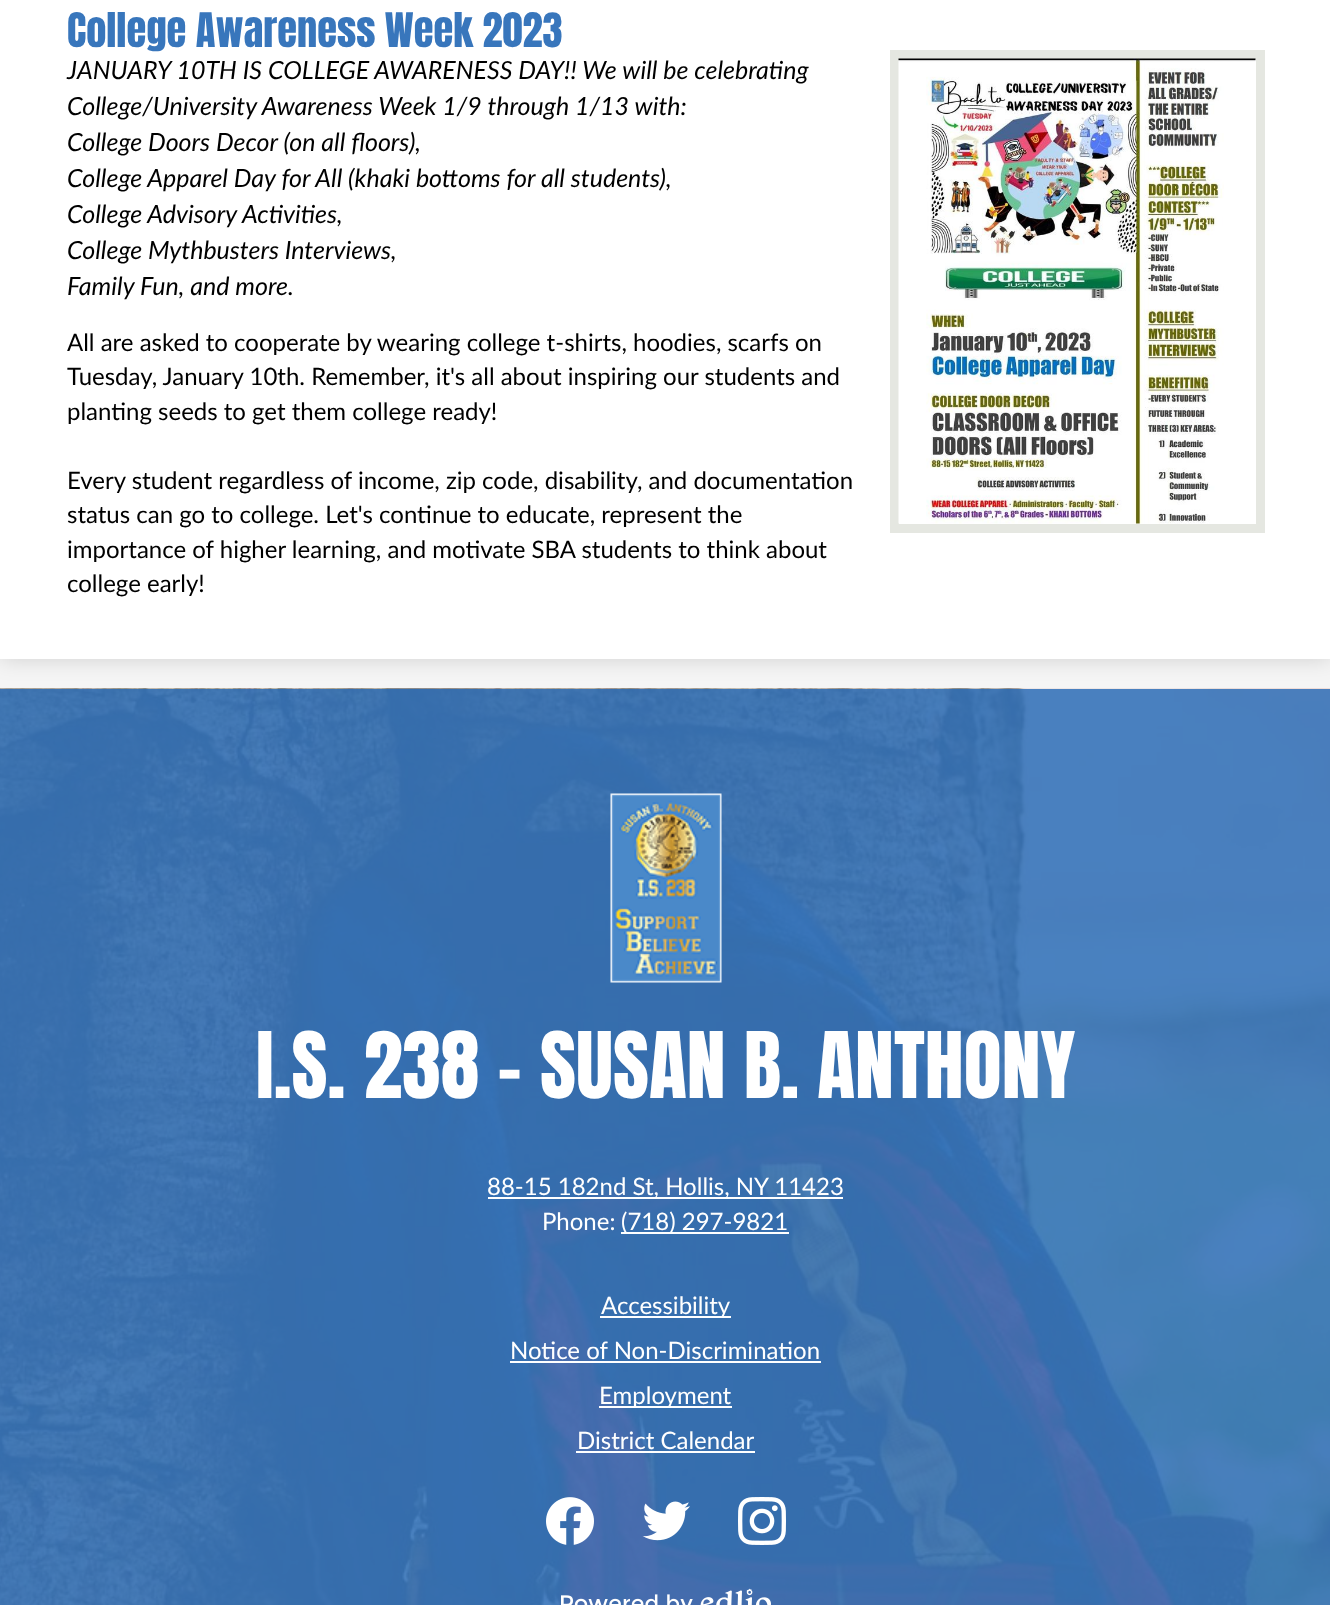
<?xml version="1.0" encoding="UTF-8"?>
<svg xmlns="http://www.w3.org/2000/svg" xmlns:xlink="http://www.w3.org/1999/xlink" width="1330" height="1605">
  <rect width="100%" height="100%" fill="#f5f5f5" />
  <image x="0" y="688" width="1330" height="917" xlink:href="image2.png" />
  <rect y="-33" width="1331" height="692" fill="#000000" fill-opacity="0.15" filter="blur(11px)" />
  <rect width="1330" height="659" fill="#ffffff" />
  <rect x="894.5" y="54.5" width="366" height="474" fill="none" stroke="#e5e7e1" stroke-width="9" />
  <image x="898" y="58" width="358" height="466" xlink:href="image1.png" />
  <image x="610" y="793" width="112" height="190" xlink:href="image3.png" />
  <rect x="488" y="1197" width="355" height="2" fill="#ffffff" />
  <rect x="621" y="1232" width="168" height="2" fill="#ffffff" />
  <rect x="600" y="1316" width="131" height="2" fill="#ffffff" />
  <rect x="510" y="1361" width="311" height="2" fill="#ffffff" />
  <rect x="599" y="1406" width="133" height="2" fill="#ffffff" />
  <rect x="576" y="1451" width="179" height="2" fill="#ffffff" />
  <image x="546" y="1497" width="48" height="48" xlink:href="image4.png" />
  <image x="642" y="1501" width="48" height="40" xlink:href="image5.png" />
  <image x="738" y="1497" width="48" height="48" xlink:href="image6.png" />
  <image x="561" y="1588" width="210" height="17" xlink:href="image7.png" />
  <text x="67" y="47" style="font-family: Anton; font-size: 40.5px; fill: #3876bc">College Awareness Week 2023</text>
  <text x="67" y="79" style="font-family: Lato; font-size: 25px; font-style: italic; fill: #000000">JANUARY 10TH IS COLLEGE AWARENESS DAY!! We will be celebrating</text>
  <text x="67" y="115" style="font-family: Lato; font-size: 25px; font-style: italic; fill: #000000">College/University Awareness Week 1/9 through 1/13 with:</text>
  <text x="67" y="151" style="font-family: Lato; font-size: 25px; font-style: italic; fill: #000000">College Doors Decor (on all floors),</text>
  <text x="67" y="187" style="font-family: Lato; font-size: 25px; font-style: italic; fill: #000000">College Apparel Day for All (khaki bottoms for all students),</text>
  <text x="67" y="223" style="font-family: Lato; font-size: 25px; font-style: italic; fill: #000000">College Advisory Activities,</text>
  <text x="67" y="259" style="font-family: Lato; font-size: 25px; font-style: italic; fill: #000000">College Mythbusters Interviews,</text>
  <text x="67" y="295" style="font-family: Lato; font-size: 25px; font-style: italic; fill: #000000">Family Fun, and more.</text>
  <text x="67" y="351" style="font-family: Lato; font-size: 24px; fill: #000000">All are asked to cooperate by wearing college t-shirts, hoodies, scarfs on</text>
  <text x="67" y="385" style="font-family: Lato; font-size: 24px; fill: #000000">Tuesday, January 10th. Remember, it's all about inspiring our students and</text>
  <text x="67" y="420" style="font-family: Lato; font-size: 24px; fill: #000000">planting seeds to get them college ready!</text>
  <text x="67" y="489" style="font-family: Lato; font-size: 24px; fill: #000000">Every student regardless of income, zip code, disability, and documentation</text>
  <text x="67" y="523" style="font-family: Lato; font-size: 24px; fill: #000000">status can go to college. Let's continue to educate, represent the</text>
  <text x="67" y="558" style="font-family: Lato; font-size: 24px; fill: #000000">importance of higher learning, and motivate SBA students to think about</text>
  <text x="67" y="592" style="font-family: Lato; font-size: 24px; fill: #000000">college early!</text>
  <text x="256" y="1098" style="font-family: Anton; font-size: 78px; fill: #ffffff">I.S. 238 - SUSAN B. ANTHONY</text>
  <text x="487" y="1195" style="font-family: Lato; font-size: 24px; fill: #ffffff">88-15 182nd St, Hollis, NY 11423</text>
  <text x="542" y="1230" style="font-family: Lato; font-size: 24px; fill: #ffffff">Phone:</text>
  <text x="621" y="1230" style="font-family: Lato; font-size: 24px; fill: #ffffff">(718) 297-9821</text>
  <text x="601" y="1314" style="font-family: Lato; font-size: 24px; fill: #ffffff">Accessibility</text>
  <text x="510" y="1359" style="font-family: Lato; font-size: 24px; fill: #ffffff">Notice of Non-Discrimination</text>
  <text x="599" y="1404" style="font-family: Lato; font-size: 24px; fill: #ffffff">Employment</text>
  <text x="577" y="1449" style="font-family: Lato; font-size: 24px; fill: #ffffff">District Calendar</text>
</svg>
